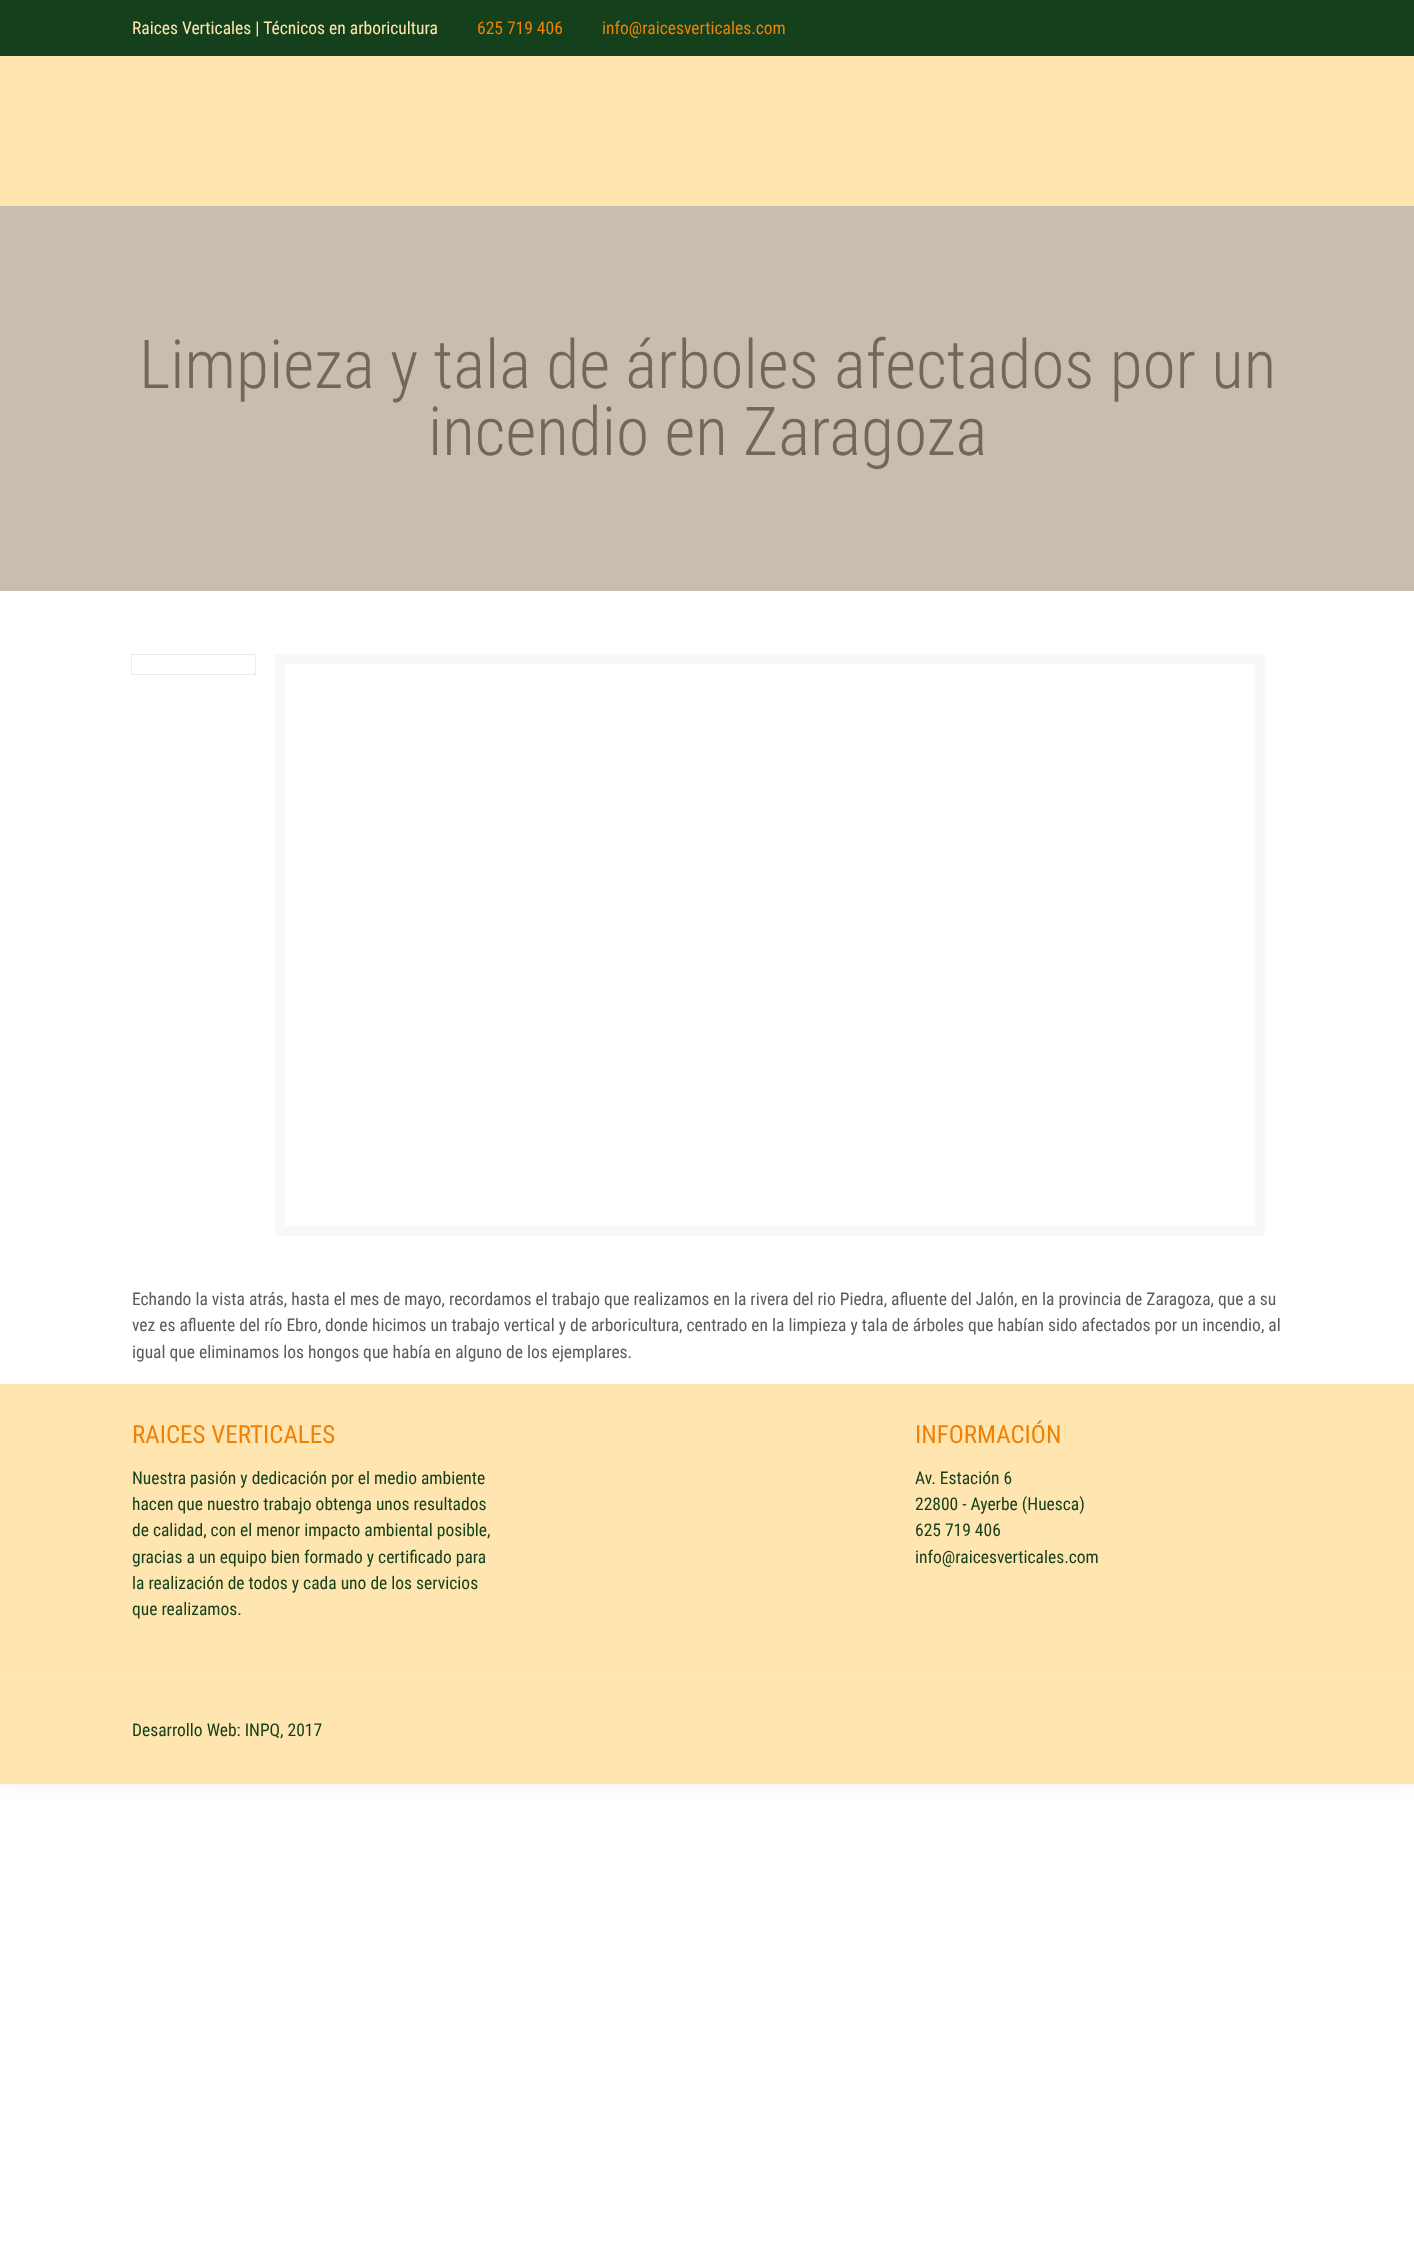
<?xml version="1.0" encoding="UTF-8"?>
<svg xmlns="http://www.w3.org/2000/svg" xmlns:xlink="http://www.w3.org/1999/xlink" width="1414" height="2242">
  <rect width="100%" height="100%" fill="#ffffff" />
  <rect width="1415" height="1784" fill="#000000" fill-opacity="0.06" filter="blur(9.5px)" />
  <rect y="591" width="1414" height="793" fill="#ffffff" />
  <rect y="206" width="1414" height="385" fill="#c8beaf" />
  <rect width="1414" height="56" fill="#15401c" />
  <rect y="56" width="1414" height="150" fill="#ffe5af" />
  <rect x="131.5" y="654.5" width="124" height="20" fill="none" stroke="#ebebeb" />
  <rect x="280" y="659" width="980" height="572" fill="none" stroke="#f8f8f8" stroke-width="10" />
  <rect y="1384" width="1414" height="400" fill="#ffe5af" />
  <rect y="1679" width="1414" height="1" fill="#ffe8b7" />
  <text x="132" y="34" style="font-family: Roboto Condensed; font-size: 17.5px; fill: #ffe5af">Raices Verticales | Técnicos en arboricultura</text>
  <text x="477" y="34" style="font-family: Roboto Condensed; font-size: 17.5px; fill: #f08105">625 719 406</text>
  <text x="602" y="34" style="font-family: Roboto Condensed; font-size: 17.5px; fill: #f08105">info@raicesverticales.com</text>
  <text x="139" y="388" style="font-family: Roboto Condensed; font-size: 67.5px; font-weight: 300; fill: #72685a">Limpieza y tala de árboles afectados por un</text>
  <text x="428" y="455" style="font-family: Roboto Condensed; font-size: 67.5px; font-weight: 300; fill: #72685a">incendio en Zaragoza</text>
  <text x="132" y="1305" style="font-family: Roboto Condensed; font-size: 17.5px; fill: #5a5a5a">Echando la vista atrás, hasta el mes de mayo, recordamos el trabajo que realizamos en la rivera del rio Piedra, afluente del Jalón, en la provincia de Zaragoza, que a su</text>
  <text x="132" y="1331" style="font-family: Roboto Condensed; font-size: 17.5px; fill: #5a5a5a">vez es afluente del río Ebro, donde hicimos un trabajo vertical y de arboricultura, centrado en la limpieza y tala de árboles que habían sido afectados por un incendio, al</text>
  <text x="132" y="1358" style="font-family: Roboto Condensed; font-size: 17.5px; fill: #5a5a5a">igual que eliminamos los hongos que había en alguno de los ejemplares.</text>
  <text x="132" y="1443" style="font-family: Roboto Condensed; font-size: 25px; fill: #f08105">RAICES VERTICALES</text>
  <text x="132" y="1484" style="font-family: Roboto Condensed; font-size: 17.5px; fill: #15401c">Nuestra pasión y dedicación por el medio ambiente</text>
  <text x="132" y="1510" style="font-family: Roboto Condensed; font-size: 17.5px; fill: #15401c">hacen que nuestro trabajo obtenga unos resultados</text>
  <text x="132" y="1536" style="font-family: Roboto Condensed; font-size: 17.5px; fill: #15401c">de calidad, con el menor impacto ambiental posible,</text>
  <text x="132" y="1563" style="font-family: Roboto Condensed; font-size: 17.5px; fill: #15401c">gracias a un equipo bien formado y certificado para</text>
  <text x="132" y="1589" style="font-family: Roboto Condensed; font-size: 17.5px; fill: #15401c">la realización de todos y cada uno de los servicios</text>
  <text x="132" y="1615" style="font-family: Roboto Condensed; font-size: 17.5px; fill: #15401c">que realizamos.</text>
  <text x="915" y="1443" style="font-family: Roboto Condensed; font-size: 25px; fill: #f08105">INFORMACIÓN</text>
  <text x="915" y="1484" style="font-family: Roboto Condensed; font-size: 17.5px; fill: #15401c">Av. Estación 6</text>
  <text x="915" y="1510" style="font-family: Roboto Condensed; font-size: 17.5px; fill: #15401c">22800 - Ayerbe (Huesca)</text>
  <text x="915" y="1536" style="font-family: Roboto Condensed; font-size: 17.5px; fill: #15401c">625 719 406</text>
  <text x="915" y="1563" style="font-family: Roboto Condensed; font-size: 17.5px; fill: #15401c">info@raicesverticales.com</text>
  <text x="132" y="1736" style="font-family: Roboto Condensed; font-size: 17.5px; fill: #15401c">Desarrollo Web: INPQ, 2017</text>
</svg>
